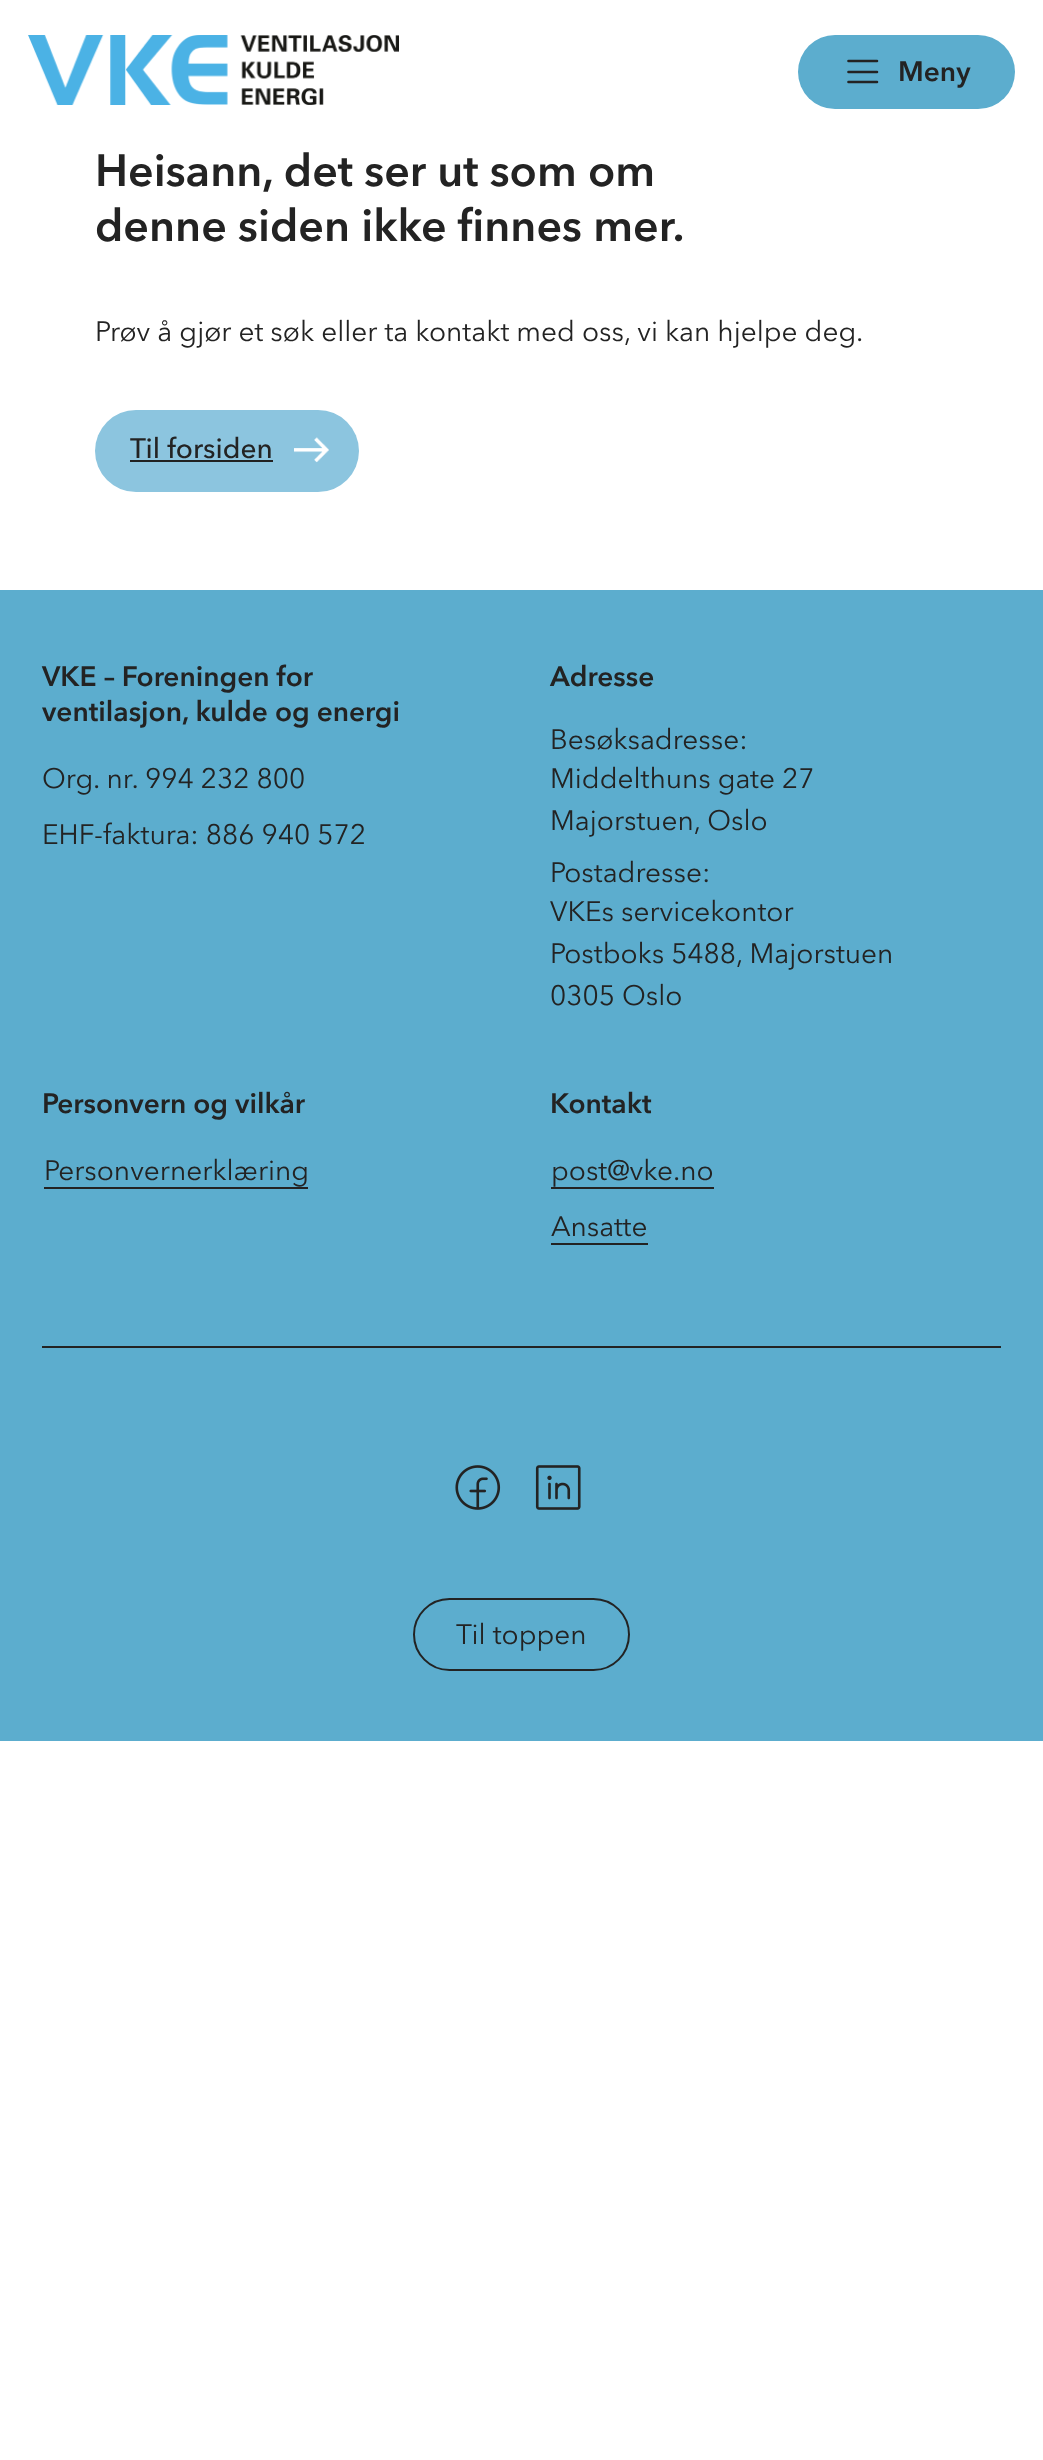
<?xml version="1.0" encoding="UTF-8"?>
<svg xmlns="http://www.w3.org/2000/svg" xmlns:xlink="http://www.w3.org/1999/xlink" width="1043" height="2460">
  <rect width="100%" height="100%" fill="#ffffff" />
  <image x="28" y="35" width="371" height="70" xlink:href="image1.png" />
  <rect x="798" y="35" width="217" height="74" rx="37" fill="#5cadce" />
  <path d="M 848.5 72 h 28.5 m -28.5 -11 h 28.5 m -28.5 21 h 28.5" fill="none" stroke="#232323" stroke-width="2.6" stroke-linecap="round" stroke-linejoin="round" />
  <rect x="95" y="410" width="264" height="82" rx="41" fill="#8cc5df" />
  <rect x="130" y="460" width="143" height="2" fill="#222222" />
  <image x="294" y="437" width="35" height="26" xlink:href="image2.png" />
  <rect y="590" width="1043" height="1151" fill="#5cadce" />
  <rect x="42" y="1346" width="959" height="2" fill="#232323" />
  <rect x="44" y="1187" width="264" height="2" fill="#232323" />
  <rect x="551" y="1187" width="163" height="2" fill="#232323" />
  <rect x="551" y="1243" width="97" height="2" fill="#232323" />
  <image x="455" y="1465" width="46" height="45" xlink:href="image3.png" />
  <image x="535" y="1465" width="46" height="45" xlink:href="image4.png" />
  <rect x="414" y="1599" width="215" height="71" rx="35.5" fill="none" stroke="#232323" stroke-width="2" />
  <text x="898" y="81" style="font-family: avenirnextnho; font-size: 28px; font-weight: bold; fill: #232323">Meny</text>
  <text x="95" y="186" style="font-family: avenirnextnho; font-size: 44.75px; font-weight: bold; fill: #232323">Heisann, det ser ut som om</text>
  <text x="95" y="241" style="font-family: avenirnextnho; font-size: 44.75px; font-weight: bold; fill: #232323">denne siden ikke finnes mer.</text>
  <text x="95" y="341" style="font-family: avenirnextnho; font-size: 28px; fill: #232323">Prøv å gjør et søk eller ta kontakt med oss, vi kan hjelpe deg.</text>
  <text x="130" y="458" style="font-family: avenirnextnho; font-size: 28px; font-weight: 500; fill: #232323">Til forsiden</text>
  <text x="42" y="686" style="font-family: avenirnextnho; font-size: 28px; font-weight: bold; fill: #232323">VKE – Foreningen for</text>
  <text x="42" y="721" style="font-family: avenirnextnho; font-size: 28px; font-weight: bold; fill: #232323">ventilasjon, kulde og energi</text>
  <text x="42" y="788" style="font-family: avenirnextnho; font-size: 28px; fill: #232323">Org. nr. 994 232 800</text>
  <text x="42" y="844" style="font-family: avenirnextnho; font-size: 28px; fill: #232323">EHF-faktura: 886 940 572</text>
  <text x="550" y="686" style="font-family: avenirnextnho; font-size: 28px; font-weight: bold; fill: #232323">Adresse</text>
  <text x="550" y="749" style="font-family: avenirnextnho; font-size: 28px; fill: #232323">Besøksadresse:</text>
  <text x="550" y="788" style="font-family: avenirnextnho; font-size: 28px; fill: #232323">Middelthuns gate 27</text>
  <text x="550" y="830" style="font-family: avenirnextnho; font-size: 28px; fill: #232323">Majorstuen, Oslo</text>
  <text x="550" y="882" style="font-family: avenirnextnho; font-size: 28px; fill: #232323">Postadresse:</text>
  <text x="550" y="921" style="font-family: avenirnextnho; font-size: 28px; fill: #232323">VKEs servicekontor</text>
  <text x="550" y="963" style="font-family: avenirnextnho; font-size: 28px; fill: #232323">Postboks 5488, Majorstuen</text>
  <text x="550" y="1005" style="font-family: avenirnextnho; font-size: 28px; fill: #232323">0305 Oslo</text>
  <text x="42" y="1113" style="font-family: avenirnextnho; font-size: 28px; font-weight: bold; fill: #232323">Personvern og vilkår</text>
  <text x="44" y="1180" style="font-family: avenirnextnho; font-size: 28px; fill: #232323">Personvernerklæring</text>
  <text x="550" y="1113" style="font-family: avenirnextnho; font-size: 28px; font-weight: bold; fill: #232323">Kontakt</text>
  <text x="551" y="1180" style="font-family: avenirnextnho; font-size: 28px; fill: #232323">post@vke.no</text>
  <text x="551" y="1236" style="font-family: avenirnextnho; font-size: 28px; fill: #232323">Ansatte</text>
  <text x="456" y="1644" style="font-family: avenirnextnho; font-size: 28px; fill: #232323">Til toppen</text>
</svg>
